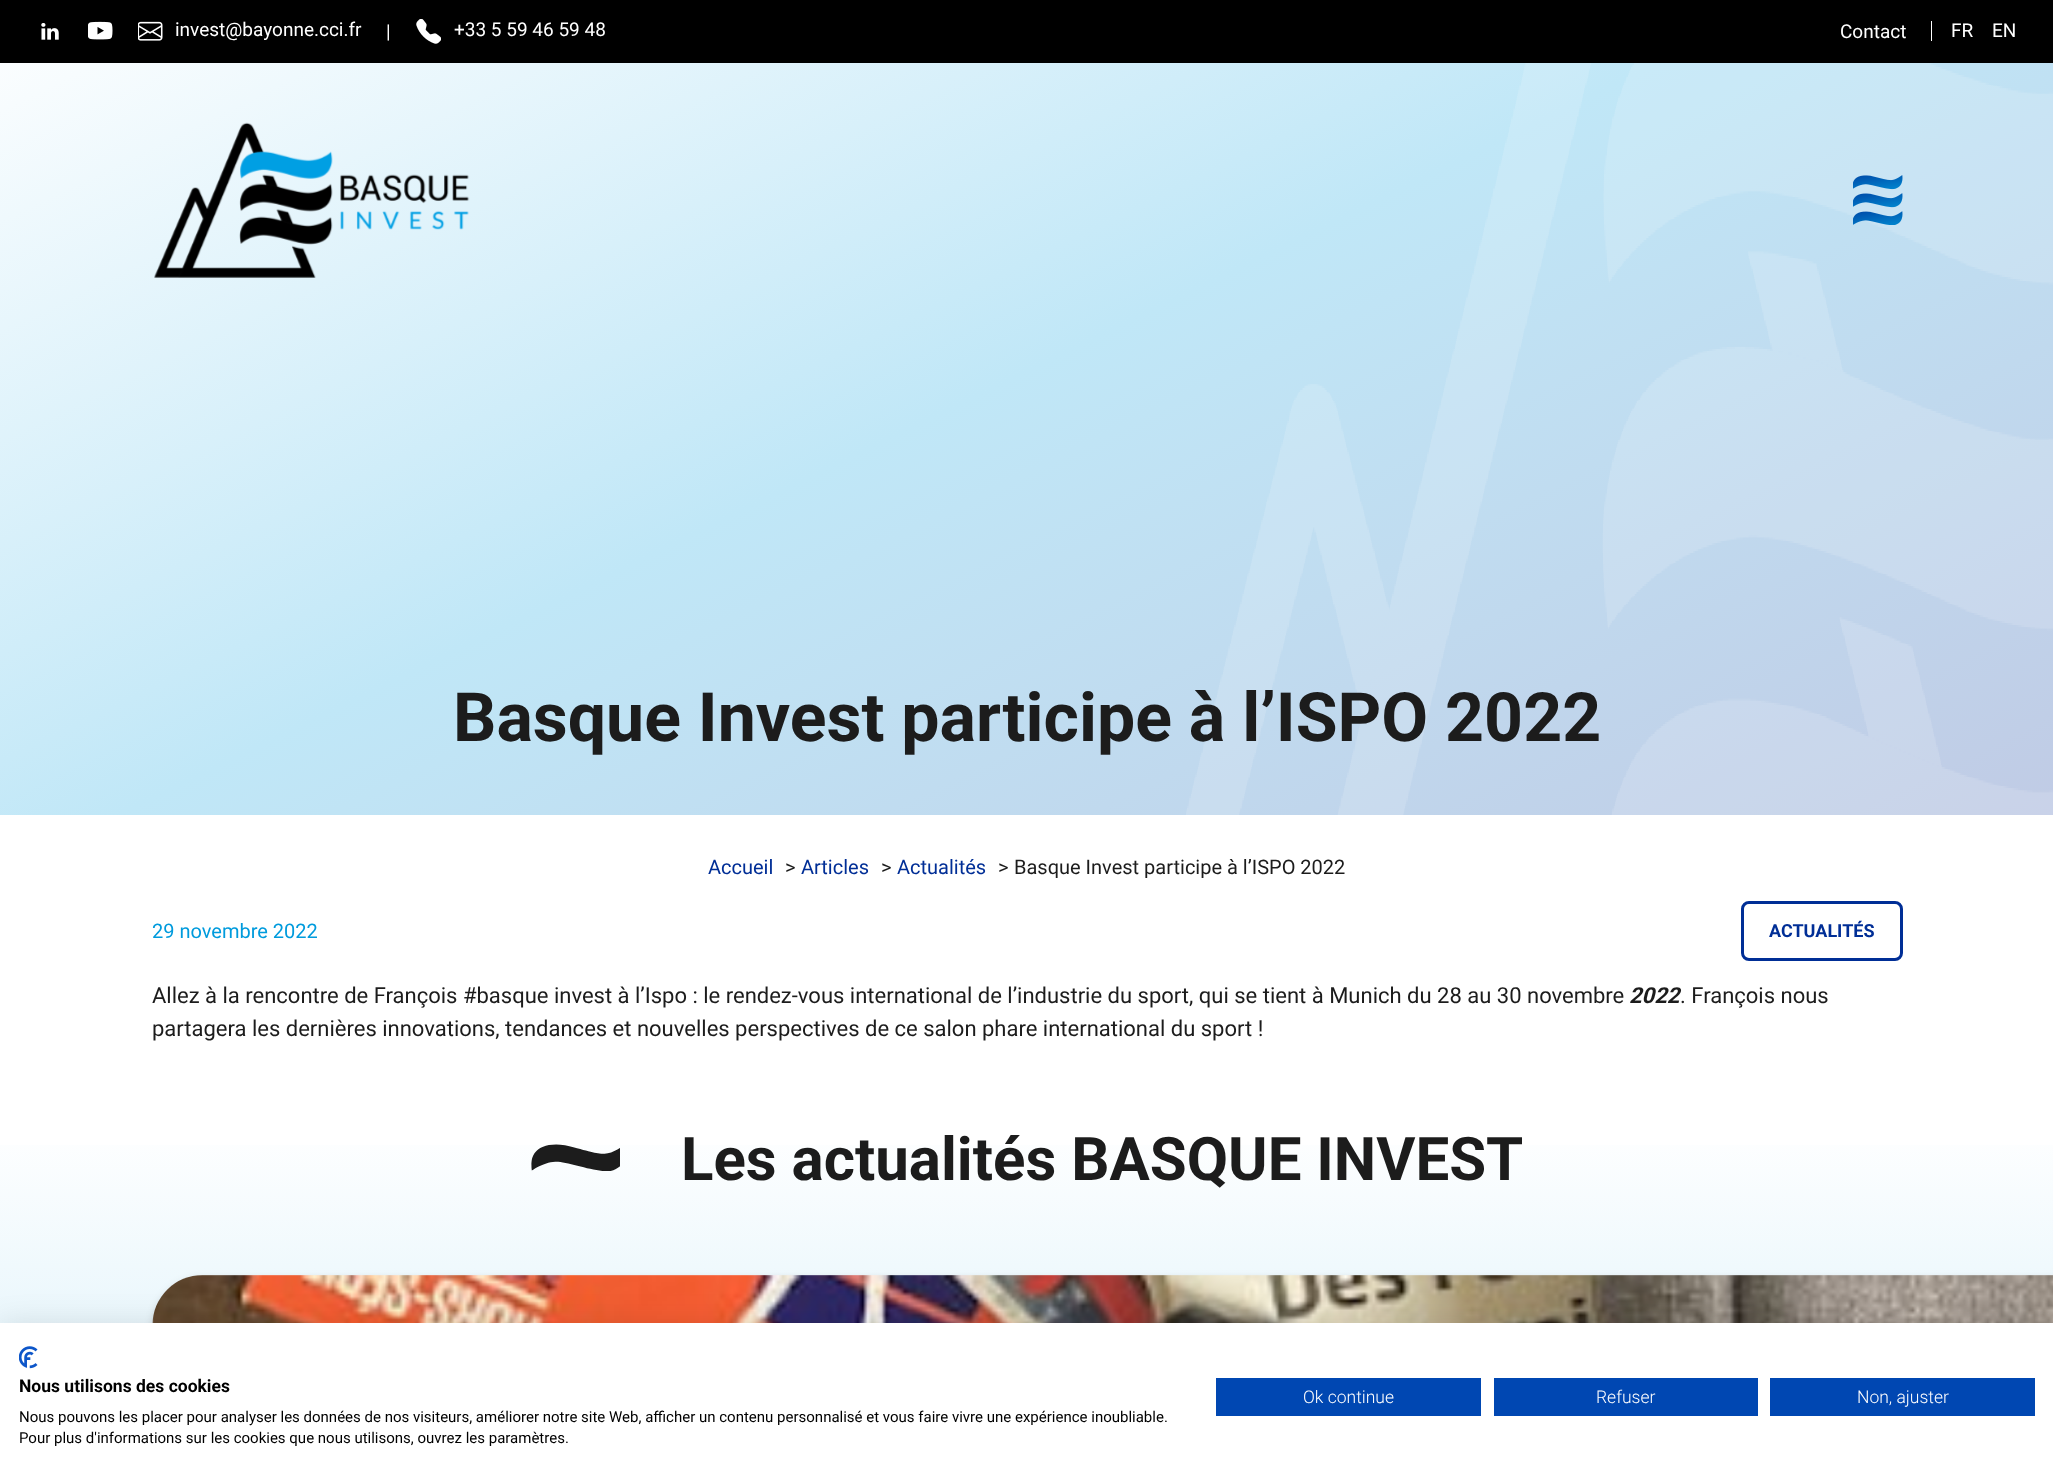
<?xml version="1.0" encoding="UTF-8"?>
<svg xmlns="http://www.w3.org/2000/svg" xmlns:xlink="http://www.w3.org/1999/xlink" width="2053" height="1482">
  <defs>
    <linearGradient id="g1" gradientUnits="userSpaceOnUse" x1="1385" y1="1141" x2="669" y2="-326"><stop offset="0" stop-color="#c0cbe5" /><stop offset="0.52" stop-color="#c0e7f7" /><stop offset="1" stop-color="#ffffff" /></linearGradient>
    <linearGradient id="g2" gradientUnits="userSpaceOnUse" x1="1027" y1="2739" x2="1027" y2="1121"><stop offset="0" stop-color="#002e96" /><stop offset="0.26" stop-color="#83ceee" /><stop offset="1" stop-color="#ffffff" /></linearGradient>
  </defs>
  <rect width="100%" height="100%" fill="#ffffff" />
  <rect width="2053" height="63" fill="#000000" />
  <image x="41" y="23" width="18" height="17" xlink:href="image1.png" />
  <image x="88" y="21" width="25" height="19" xlink:href="image2.png" />
  <image x="138" y="21" width="25" height="20" xlink:href="image3.png" />
  <image x="416" y="19" width="25" height="25" xlink:href="image4.png" />
  <rect x="1931" y="21" width="1" height="20" fill="#ffffff" />
  <rect y="63" width="2053" height="752" fill="url(#g1)" />
  <image x="154" y="122" width="316" height="156" xlink:href="image5.png" />
  <image x="1186" y="63" width="867" height="752" xlink:href="image7.png" />
  <image x="1853" y="175" width="50" height="50" xlink:href="image6.png" />
  <rect x="1742.5" y="902.5" width="159" height="57" rx="6.5" fill="none" stroke="#002e96" stroke-width="3" />
  <rect y="1145" width="2053" height="178" fill="url(#g2)" />
  <image x="531" y="1144" width="89" height="27" xlink:href="image8.png" />
  <rect x="153" y="1279" width="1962" height="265" rx="50" fill="#000000" fill-opacity="0.16" filter="blur(4px)" />
  <image x="152" y="1275" width="1901" height="48" xlink:href="image9.png" />
  <rect y="1323" width="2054" height="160" fill="#000000" fill-opacity="0.1" filter="blur(15px)" />
  <rect y="1323" width="2053" height="159" fill="#ffffff" />
  <image x="19" y="1346" width="19" height="23" xlink:href="image10.png" />
  <rect x="1216" y="1378" width="265" height="38" fill="#0047b2" />
  <rect x="1494" y="1378" width="264" height="38" fill="#0047b2" />
  <rect x="1770" y="1378" width="265" height="38" fill="#0047b2" />
  <text x="175" y="36" style="font-family: Roboto; font-size: 19px; fill: #ffffff">invest@bayonne.cci.fr</text>
  <text x="386" y="38" style="font-family: Roboto; font-size: 19px; fill: #ffffff">|</text>
  <text x="454" y="36" style="font-family: Roboto; font-size: 19px; fill: #ffffff">+33 5 59 46 59 48</text>
  <text x="1840" y="38" style="font-family: Roboto; font-size: 19px; fill: #ffffff">Contact</text>
  <text x="1951" y="37" style="font-family: Roboto; font-size: 19px; fill: #ffffff">FR</text>
  <text x="1992" y="37" style="font-family: Roboto; font-size: 19px; fill: #ffffff">EN</text>
  <text x="453" y="741" style="font-family: Roboto; font-size: 68px; font-weight: bold; fill: #1c1c1c">Basque Invest participe à l’ISPO 2022</text>
  <text x="708" y="874" style="font-family: Roboto; font-size: 20px; fill: #002e96">Accueil</text>
  <text x="785" y="874" style="font-family: Roboto; font-size: 20px; fill: #1c1c1c">&gt;</text>
  <text x="801" y="874" style="font-family: Roboto; font-size: 20px; fill: #002e96">Articles</text>
  <text x="881" y="874" style="font-family: Roboto; font-size: 20px; fill: #1c1c1c">&gt;</text>
  <text x="897" y="874" style="font-family: Roboto; font-size: 20px; fill: #002e96">Actualités</text>
  <text x="998" y="874" style="font-family: Roboto; font-size: 20px; fill: #1c1c1c">&gt;</text>
  <text x="1014" y="874" style="font-family: Roboto; font-size: 20px; fill: #1c1c1c">Basque Invest participe à l’ISPO 2022</text>
  <text x="152" y="938" style="font-family: Roboto; font-size: 20px; fill: #009bdd">29 novembre 2022</text>
  <text x="1769" y="937" style="font-family: Roboto; font-size: 18px; font-weight: bold; fill: #002e96">ACTUALITÉS</text>
  <text x="152" y="1003" style="font-family: Roboto; font-size: 22px; fill: #1c1c1c">Allez à la rencontre de François #basque invest à l’Ispo : le rendez-vous international de l’industrie du sport, qui se tient à Munich du 28 au 30 novembre</text>
  <text x="1629" y="1003" style="font-family: Roboto; font-size: 22px; font-weight: bold; font-style: italic; fill: #1c1c1c">2022</text>
  <text x="1680" y="1003" style="font-family: Roboto; font-size: 22px; fill: #1c1c1c">. François nous</text>
  <text x="152" y="1036" style="font-family: Roboto; font-size: 22px; fill: #1c1c1c">partagera les dernières innovations, tendances et nouvelles perspectives de ce salon phare international du sport !</text>
  <text x="681" y="1180" style="font-family: Roboto; font-size: 60px; font-weight: bold; fill: #1c1c1c">Les actualités BASQUE INVEST</text>
  <text x="19" y="1392" style="font-family: Roboto; font-size: 17.5px; font-weight: bold; fill: #000000">Nous utilisons des cookies</text>
  <text x="19" y="1422" style="font-family: Roboto; font-size: 15px; fill: #000000">Nous pouvons les placer pour analyser les données de nos visiteurs, améliorer notre site Web, afficher un contenu personnalisé et vous faire vivre une expérience inoubliable.</text>
  <text x="19" y="1443" style="font-family: Roboto; font-size: 15px; fill: #000000">Pour plus d'informations sur les cookies que nous utilisons, ouvrez les paramètres.</text>
  <text x="1303" y="1403" style="font-family: Roboto; font-size: 17.5px; font-weight: 300; fill: #ffffff">Ok continue</text>
  <text x="1596" y="1403" style="font-family: Roboto; font-size: 17.5px; font-weight: 300; fill: #ffffff">Refuser</text>
  <text x="1857" y="1403" style="font-family: Roboto; font-size: 17.5px; font-weight: 300; fill: #ffffff">Non, ajuster</text>
</svg>
